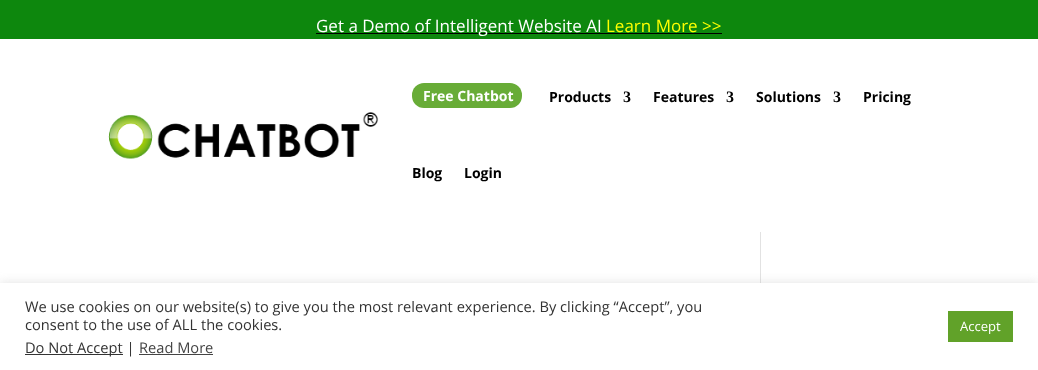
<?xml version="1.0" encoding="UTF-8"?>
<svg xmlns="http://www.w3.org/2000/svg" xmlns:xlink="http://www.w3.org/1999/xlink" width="1038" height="370">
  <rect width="100%" height="100%" fill="#ffffff" />
  <rect width="1038" height="39" fill="#0d870d" />
  <rect x="316" y="33" width="406" height="1" fill="#000000" />
  <image x="108" y="112" width="271" height="47" xlink:href="image1.png" />
  <rect x="412" y="83" width="110" height="25" rx="12" fill="#68ac37" />
  <rect x="760" y="232" width="1" height="51" fill="#e2e2e2" />
  <rect y="282" width="1038" height="87" fill="#acabab" fill-opacity="0.3" filter="blur(5px)" />
  <rect y="283" width="1038" height="87" fill="#ffffff" />
  <rect x="25" y="354" width="98" height="1" fill="#333333" />
  <rect x="139" y="354" width="74" height="1" fill="#444444" />
  <rect x="948" y="311" width="65" height="31" fill="#61a229" />
  <text x="316" y="32" style="font-family: Open Sans; font-size: 17px; fill: #ffffff">Get a Demo of Intelligent Website AI</text>
  <text x="606" y="32" style="font-family: Open Sans; font-size: 17px; fill: #ffff00">Learn More &gt;&gt;</text>
  <text x="423" y="101" style="font-family: Open Sans; font-size: 14px; font-weight: bold; fill: #ffffff">Free Chatbot</text>
  <text x="549" y="102" style="font-family: Open Sans; font-size: 14px; font-weight: bold; fill: #000000">Products</text>
  <text x="623" y="102" style="font-family: Liberation Serif; font-size: 16px; font-weight: bold; fill: #000000">3</text>
  <text x="653" y="102" style="font-family: Open Sans; font-size: 14px; font-weight: bold; fill: #000000">Features</text>
  <text x="726" y="102" style="font-family: Liberation Serif; font-size: 16px; font-weight: bold; fill: #000000">3</text>
  <text x="756" y="102" style="font-family: Open Sans; font-size: 14px; font-weight: bold; fill: #000000">Solutions</text>
  <text x="833" y="102" style="font-family: Liberation Serif; font-size: 16px; font-weight: bold; fill: #000000">3</text>
  <text x="863" y="102" style="font-family: Open Sans; font-size: 14px; font-weight: bold; fill: #000000">Pricing</text>
  <text x="412" y="178" style="font-family: Open Sans; font-size: 14px; font-weight: bold; fill: #000000">Blog</text>
  <text x="464" y="178" style="font-family: Open Sans; font-size: 14px; font-weight: bold; fill: #000000">Login</text>
  <text x="25" y="312" style="font-family: Open Sans; font-size: 14.65px; fill: #333333">We use cookies on our website(s) to give you the most relevant experience. By clicking “Accept”, you</text>
  <text x="25" y="330" style="font-family: Open Sans; font-size: 14.65px; fill: #333333">consent to the use of ALL the cookies.</text>
  <text x="25" y="353" style="font-family: Open Sans; font-size: 14.65px; fill: #333333">Do Not Accept |</text>
  <text x="139" y="353" style="font-family: Open Sans; font-size: 14.65px; fill: #444444">Read More</text>
  <text x="960" y="331" style="font-family: Open Sans; font-size: 13px; fill: #ffffff">Accept</text>
</svg>
